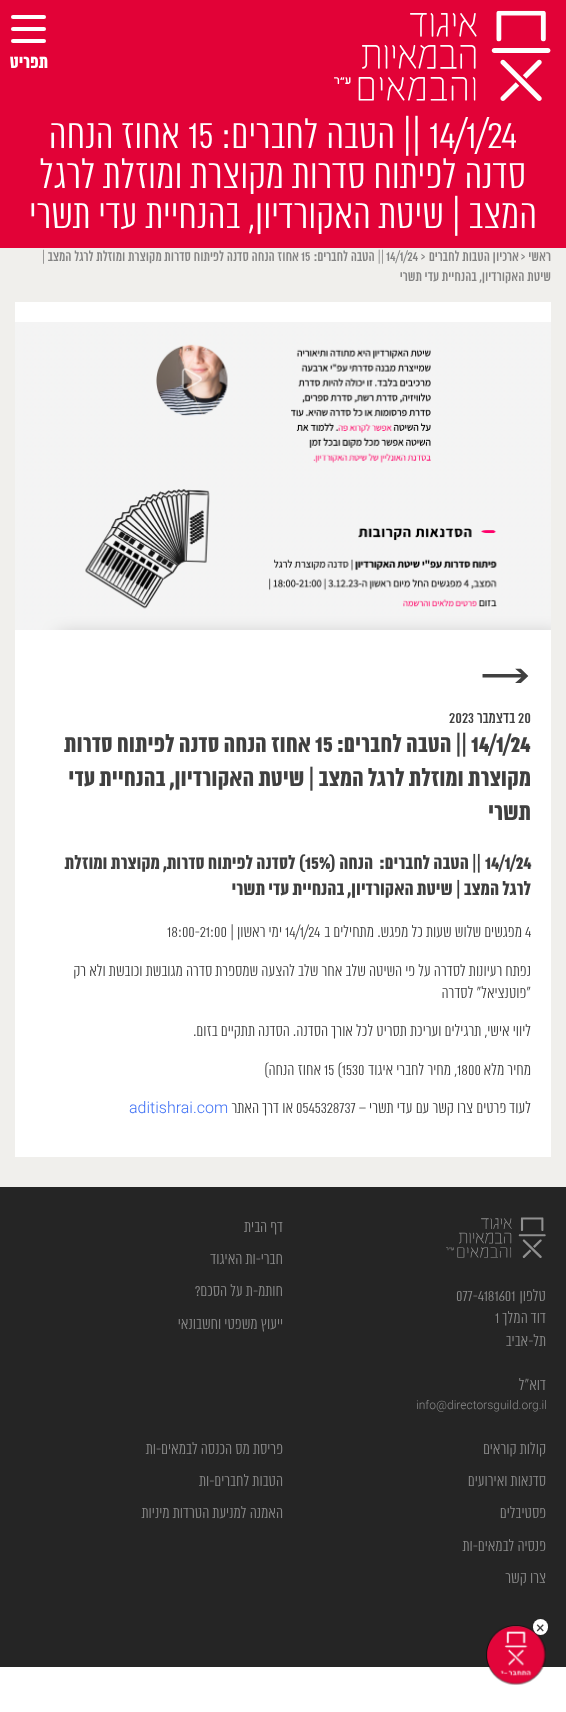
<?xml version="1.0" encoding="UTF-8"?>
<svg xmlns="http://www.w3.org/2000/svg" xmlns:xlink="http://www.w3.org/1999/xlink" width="566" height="1712">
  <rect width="100%" height="100%" fill="#ffffff" />
  <rect width="566" height="248" fill="#e20237" />
  <image x="334" y="10" width="217" height="91" xlink:href="image1.png" />
  <rect x="11" y="15" width="35" height="4" rx="2" fill="#ffffff" />
  <rect x="11" y="27" width="35" height="4" rx="2" fill="#ffffff" />
  <rect x="11" y="39" width="35" height="4" rx="2" fill="#ffffff" />
  <rect y="248" width="566" height="939" fill="#f0efec" />
  <rect x="15" y="302" width="536" height="855" fill="#ffffff" />
  <image x="15" y="322" width="536" height="308" xlink:href="image2.png" />
  <rect y="1187" width="566" height="480" fill="#252525" />
  <image x="446" y="1217" width="100" height="41" xlink:href="image3.png" />
  <image x="486" y="1625" width="60" height="60" xlink:href="image4.png" />
  <rect x="533" y="1619" width="15" height="16" rx="7.5" fill="#ffffff" />
  <text x="48" y="68" style="font-family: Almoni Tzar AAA; font-size: 18px; font-weight: bold; direction: rtl; fill: #ffffff">תפריט</text>
  <text x="429" y="148" style="font-family: Almoni Tzar AAA; font-size: 40px; font-weight: 300; fill: #ffffff">14/1/24</text>
  <text x="421" y="148" style="font-family: Almoni Tzar AAA; font-size: 40px; font-weight: 300; direction: rtl; fill: #ffffff">|| הטבה לחברים:</text>
  <text x="188" y="148" style="font-family: Almoni Tzar AAA; font-size: 40px; font-weight: 300; fill: #ffffff">15</text>
  <text x="180" y="148" style="font-family: Almoni Tzar AAA; font-size: 40px; font-weight: 300; direction: rtl; fill: #ffffff">אחוז הנחה</text>
  <text x="526" y="188" style="font-family: Almoni Tzar AAA; font-size: 40px; font-weight: 300; direction: rtl; fill: #ffffff">סדנה לפיתוח סדרות מקוצרת ומוזלת לרגל</text>
  <text x="537" y="228" style="font-family: Almoni Tzar AAA; font-size: 40px; font-weight: 300; direction: rtl; fill: #ffffff">המצב | שיטת האקורדיון, בהנחיית עדי תשרי</text>
  <text x="551" y="261" style="font-family: Almoni Tzar AAA; font-size: 14px; direction: rtl; fill: #838383">ראשי</text>
  <text x="521" y="261" style="font-family: Almoni Tzar AAA; font-size: 14px; fill: #838383">&gt;</text>
  <text x="519" y="261" style="font-family: Almoni Tzar AAA; font-size: 14px; direction: rtl; fill: #838383">ארכיון הטבות לחברים</text>
  <text x="421" y="261" style="font-family: Almoni Tzar AAA; font-size: 14px; fill: #838383">&gt;</text>
  <text x="386" y="261" style="font-family: Almoni Tzar AAA; font-size: 14px; fill: #838383">14/1/24</text>
  <text x="384" y="261" style="font-family: Almoni Tzar AAA; font-size: 14px; direction: rtl; fill: #838383">|| הטבה לחברים:</text>
  <text x="301" y="261" style="font-family: Almoni Tzar AAA; font-size: 14px; fill: #838383">15</text>
  <text x="299" y="261" style="font-family: Almoni Tzar AAA; font-size: 14px; direction: rtl; fill: #838383">אחוז הנחה סדנה לפיתוח סדרות מקוצרת ומוזלת לרגל המצב |</text>
  <text x="551" y="281" style="font-family: Almoni Tzar AAA; font-size: 14px; direction: rtl; fill: #838383">שיטת האקורדיון, בהנחיית עדי תשרי</text>
  <text x="481" y="689" style="font-family: Almoni Tzar AAA; font-size: 42px; font-weight: bold; fill: #404040">→</text>
  <text x="518" y="723" style="font-family: Almoni Tzar AAA; font-size: 16px; fill: #404040">20</text>
  <text x="515" y="723" style="font-family: Almoni Tzar AAA; font-size: 16px; direction: rtl; fill: #404040">בדצמבר</text>
  <text x="449" y="723" style="font-family: Almoni Tzar AAA; font-size: 16px; fill: #404040">2023</text>
  <text x="471" y="752" style="font-family: Almoni Tzar AAA; font-size: 24px; font-weight: bold; fill: #404040">14/1/24</text>
  <text x="467" y="752" style="font-family: Almoni Tzar AAA; font-size: 24px; font-weight: bold; direction: rtl; fill: #404040">|| הטבה לחברים:</text>
  <text x="315" y="752" style="font-family: Almoni Tzar AAA; font-size: 24px; font-weight: bold; fill: #404040">15</text>
  <text x="311" y="752" style="font-family: Almoni Tzar AAA; font-size: 24px; font-weight: bold; direction: rtl; fill: #404040">אחוז הנחה סדנה לפיתוח סדרות</text>
  <text x="531" y="786" style="font-family: Almoni Tzar AAA; font-size: 24px; font-weight: bold; direction: rtl; fill: #404040">מקוצרת ומוזלת לרגל המצב | שיטת האקורדיון, בהנחיית עדי</text>
  <text x="531" y="820" style="font-family: Almoni Tzar AAA; font-size: 24px; font-weight: bold; direction: rtl; fill: #404040">תשרי</text>
  <text x="485" y="869" style="font-family: Almoni Tzar AAA; font-size: 18.75px; font-weight: bold; fill: #404040">14/1/24</text>
  <text x="305" y="869" style="font-family: Almoni Tzar AAA; font-size: 18.75px; font-weight: bold; direction: rtl; fill: #404040">) לסדנה לפיתוח סדרות, מקוצרת ומוזלת</text>
  <text x="305" y="869" style="font-family: Almoni Tzar AAA; font-size: 18.75px; font-weight: bold; fill: #404040">15%</text>
  <text x="481" y="869" style="font-family: Almoni Tzar AAA; font-size: 18.75px; font-weight: bold; direction: rtl; fill: #404040" xml:space="preserve">|| הטבה לחברים:  הנחה (</text>
  <text x="531" y="895" style="font-family: Almoni Tzar AAA; font-size: 18.75px; font-weight: bold; direction: rtl; fill: #404040">לרגל המצב | שיטת האקורדיון, בהנחיית עדי תשרי</text>
  <text x="525" y="937" style="font-family: Almoni Tzar AAA; font-size: 16px; font-weight: 300; fill: #404040">4</text>
  <text x="522" y="937" style="font-family: Almoni Tzar AAA; font-size: 16px; font-weight: 300; direction: rtl; fill: #404040">מפגשים שלוש שעות כל מפגש. מתחילים ב</text>
  <text x="285" y="937" style="font-family: Almoni Tzar AAA; font-size: 16px; font-weight: 300; fill: #404040">14/1/24</text>
  <text x="282" y="937" style="font-family: Almoni Tzar AAA; font-size: 16px; font-weight: 300; direction: rtl; fill: #404040">ימי ראשון |</text>
  <text x="167" y="937" style="font-family: Almoni Tzar AAA; font-size: 16px; font-weight: 300; fill: #404040">18:00-21:00</text>
  <text x="531" y="976" style="font-family: Almoni Tzar AAA; font-size: 16px; font-weight: 300; direction: rtl; fill: #404040">נפתח רעיונות לסדרה על פי השיטה שלב אחר שלב להצעה שמספרת סדרה מגובשת וכובשת ולא רק</text>
  <text x="531" y="998" style="font-family: Almoni Tzar AAA; font-size: 16px; font-weight: 300; direction: rtl; fill: #404040">“פוטנציאל” לסדרה</text>
  <text x="531" y="1036" style="font-family: Almoni Tzar AAA; font-size: 16px; font-weight: 300; direction: rtl; fill: #404040">ליווי אישי, תרגילים ועריכת תסריט לכל אורך הסדנה. הסדנה תתקיים בזום.</text>
  <text x="531" y="1075" style="font-family: Almoni Tzar AAA; font-size: 16px; font-weight: 300; direction: rtl; fill: #404040">מחיר מלא</text>
  <text x="457" y="1075" style="font-family: Almoni Tzar AAA; font-size: 16px; font-weight: 300; fill: #404040">1800</text>
  <text x="457" y="1075" style="font-family: Almoni Tzar AAA; font-size: 16px; font-weight: 300; direction: rtl; fill: #404040">, מחיר לחברי איגוד</text>
  <text x="324" y="1075" style="font-family: Almoni Tzar AAA; font-size: 16px; font-weight: 300; fill: #404040">15 (1530</text>
  <text x="321" y="1075" style="font-family: Almoni Tzar AAA; font-size: 16px; font-weight: 300; direction: rtl; fill: #404040">אחוז הנחה)</text>
  <text x="531" y="1113" style="font-family: Almoni Tzar AAA; font-size: 16px; font-weight: 300; direction: rtl; fill: #404040">לעוד פרטים צרו קשר עם עדי תשרי –</text>
  <text x="296" y="1113" style="font-family: Almoni Tzar AAA; font-size: 16px; font-weight: 300; fill: #404040">0545328737</text>
  <text x="293" y="1113" style="font-family: Almoni Tzar AAA; font-size: 16px; font-weight: 300; direction: rtl; fill: #404040">או דרך האתר</text>
  <text x="129" y="1113" style="font-family: Roboto; font-size: 16px; font-weight: 300; fill: #3f71f5">aditishrai.com</text>
  <text x="283" y="1232" style="font-family: Almoni Tzar AAA; font-size: 16px; font-weight: 300; direction: rtl; fill: #8b8b8b">דף הבית</text>
  <text x="283" y="1264" style="font-family: Almoni Tzar AAA; font-size: 16px; font-weight: 300; direction: rtl; fill: #8b8b8b">חברי-ות האיגוד</text>
  <text x="283" y="1296" style="font-family: Almoni Tzar AAA; font-size: 16px; font-weight: 300; direction: rtl; fill: #8b8b8b">חותמ-ת על הסכם?</text>
  <text x="283" y="1329" style="font-family: Almoni Tzar AAA; font-size: 16px; font-weight: 300; direction: rtl; fill: #8b8b8b">ייעוץ משפטי וחשבונאי</text>
  <text x="546" y="1301" style="font-family: Almoni Tzar AAA; font-size: 16px; font-weight: 300; direction: rtl; fill: #8b8b8b">טלפון</text>
  <text x="456" y="1301" style="font-family: Almoni Tzar AAA; font-size: 16px; font-weight: 300; fill: #8b8b8b">077-4181601</text>
  <text x="546" y="1323" style="font-family: Almoni Tzar AAA; font-size: 16px; font-weight: 300; direction: rtl; fill: #8b8b8b">דוד המלך</text>
  <text x="495" y="1323" style="font-family: Almoni Tzar AAA; font-size: 16px; font-weight: 300; fill: #8b8b8b">1</text>
  <text x="546" y="1346" style="font-family: Almoni Tzar AAA; font-size: 16px; font-weight: 300; direction: rtl; fill: #8b8b8b">תל-אביב</text>
  <text x="546" y="1390" style="font-family: Almoni Tzar AAA; font-size: 16px; font-weight: 300; direction: rtl; fill: #8b8b8b">דוא”ל</text>
  <text x="416" y="1409" style="font-family: Roboto; font-size: 12px; font-weight: 300; fill: #8b8b8b">info@directorsguild.org.il</text>
  <text x="546" y="1454" style="font-family: Almoni Tzar AAA; font-size: 16px; font-weight: 300; direction: rtl; fill: #8b8b8b">קולות קוראים</text>
  <text x="546" y="1486" style="font-family: Almoni Tzar AAA; font-size: 16px; font-weight: 300; direction: rtl; fill: #8b8b8b">סדנאות ואירועים</text>
  <text x="546" y="1518" style="font-family: Almoni Tzar AAA; font-size: 16px; font-weight: 300; direction: rtl; fill: #8b8b8b">פסטיבלים</text>
  <text x="546" y="1551" style="font-family: Almoni Tzar AAA; font-size: 16px; font-weight: 300; direction: rtl; fill: #8b8b8b">פנסיה לבמאים-ות</text>
  <text x="546" y="1583" style="font-family: Almoni Tzar AAA; font-size: 16px; font-weight: 300; direction: rtl; fill: #8b8b8b">צרו קשר</text>
  <text x="283" y="1454" style="font-family: Almoni Tzar AAA; font-size: 16px; font-weight: 300; direction: rtl; fill: #8b8b8b">פריסת מס הכנסה לבמאים-ות</text>
  <text x="283" y="1486" style="font-family: Almoni Tzar AAA; font-size: 16px; font-weight: 300; direction: rtl; fill: #8b8b8b">הטבות לחברים-ות</text>
  <text x="283" y="1518" style="font-family: Almoni Tzar AAA; font-size: 16px; font-weight: 300; direction: rtl; fill: #8b8b8b">האמנה למניעת הטרדות מיניות</text>
  <text x="536" y="1633" style="font-family: Roboto; font-size: 16px; fill: #404040">×</text>
</svg>
